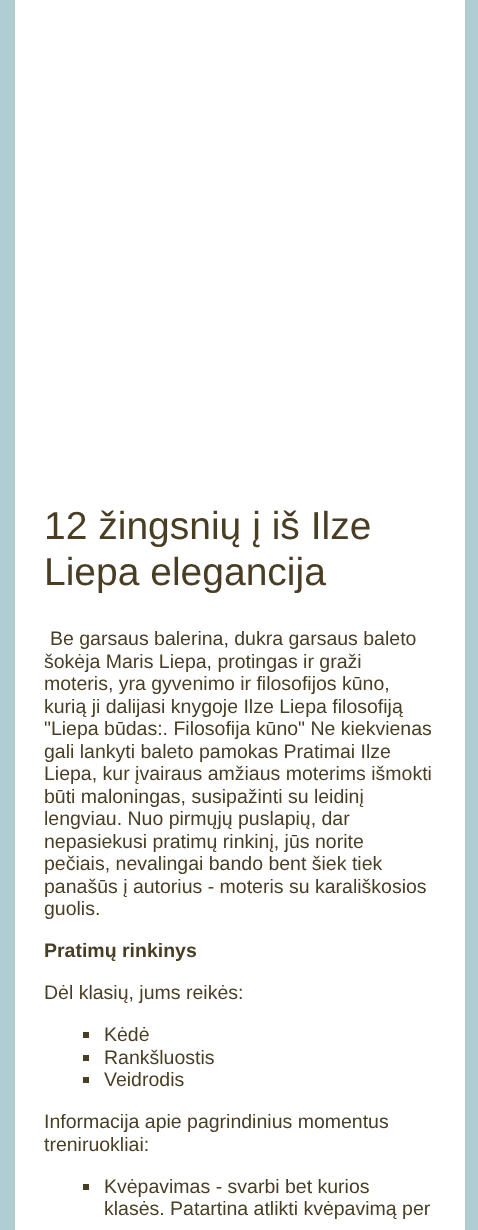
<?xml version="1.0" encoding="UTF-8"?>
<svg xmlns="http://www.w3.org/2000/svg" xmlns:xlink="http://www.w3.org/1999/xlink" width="478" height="1230">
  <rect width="100%" height="100%" fill="#afced3" />
  <rect x="15" width="450" height="1230" fill="#ffffff" />
  <rect x="83" y="1032" width="6" height="6" fill="#493e24" />
  <rect x="83" y="1055" width="6" height="6" fill="#493e24" />
  <rect x="83" y="1077" width="6" height="6" fill="#493e24" />
  <rect x="83" y="1184" width="6" height="6" fill="#493e24" />
  <text x="44" y="539" style="font-family: Liberation Sans; font-size: 39px; fill: #493e24">12 žingsnių į iš Ilze</text>
  <text x="44" y="585" style="font-family: Liberation Sans; font-size: 39px; fill: #493e24">Liepa elegancija</text>
  <text x="50" y="645" style="font-family: Liberation Sans; font-size: 19.5px; fill: #493e24">Be garsaus balerina, dukra garsaus baleto</text>
  <text x="44" y="668" style="font-family: Liberation Sans; font-size: 19.5px; fill: #493e24">šokėja Maris Liepa, protingas ir graži</text>
  <text x="44" y="690" style="font-family: Liberation Sans; font-size: 19.5px; fill: #493e24">moteris, yra gyvenimo ir filosofijos kūno,</text>
  <text x="44" y="713" style="font-family: Liberation Sans; font-size: 19.5px; fill: #493e24">kurią ji dalijasi knygoje Ilze Liepa filosofiją</text>
  <text x="44" y="735" style="font-family: Liberation Sans; font-size: 19.5px; fill: #493e24">"Liepa būdas:. Filosofija kūno" Ne kiekvienas</text>
  <text x="44" y="758" style="font-family: Liberation Sans; font-size: 19.5px; fill: #493e24">gali lankyti baleto pamokas Pratimai Ilze</text>
  <text x="44" y="780" style="font-family: Liberation Sans; font-size: 19.5px; fill: #493e24">Liepa, kur įvairaus amžiaus moterims išmokti</text>
  <text x="44" y="803" style="font-family: Liberation Sans; font-size: 19.5px; fill: #493e24">būti maloningas, susipažinti su leidinį</text>
  <text x="44" y="825" style="font-family: Liberation Sans; font-size: 19.5px; fill: #493e24">lengviau. Nuo pirmųjų puslapių, dar</text>
  <text x="44" y="848" style="font-family: Liberation Sans; font-size: 19.5px; fill: #493e24">nepasiekusi pratimų rinkinį, jūs norite</text>
  <text x="44" y="870" style="font-family: Liberation Sans; font-size: 19.5px; fill: #493e24">pečiais, nevalingai bando bent šiek tiek</text>
  <text x="44" y="893" style="font-family: Liberation Sans; font-size: 19.5px; fill: #493e24">panašūs į autorius - moteris su karališkosios</text>
  <text x="44" y="915" style="font-family: Liberation Sans; font-size: 19.5px; fill: #493e24">guolis.</text>
  <text x="44" y="957" style="font-family: Liberation Sans; font-size: 19.5px; font-weight: bold; fill: #493e24">Pratimų rinkinys</text>
  <text x="44" y="999" style="font-family: Liberation Sans; font-size: 19.5px; fill: #493e24">Dėl klasių, jums reikės:</text>
  <text x="104" y="1041" style="font-family: Liberation Sans; font-size: 19.5px; fill: #493e24">Kėdė</text>
  <text x="104" y="1064" style="font-family: Liberation Sans; font-size: 19.5px; fill: #493e24">Rankšluostis</text>
  <text x="104" y="1086" style="font-family: Liberation Sans; font-size: 19.5px; fill: #493e24">Veidrodis</text>
  <text x="44" y="1128" style="font-family: Liberation Sans; font-size: 19.5px; fill: #493e24">Informacija apie pagrindinius momentus</text>
  <text x="44" y="1151" style="font-family: Liberation Sans; font-size: 19.5px; fill: #493e24">treniruokliai:</text>
  <text x="104" y="1193" style="font-family: Liberation Sans; font-size: 19.5px; fill: #493e24">Kvėpavimas - svarbi bet kurios</text>
  <text x="104" y="1215" style="font-family: Liberation Sans; font-size: 19.5px; fill: #493e24">klasės. Patartina atlikti kvėpavimą per</text>
</svg>
